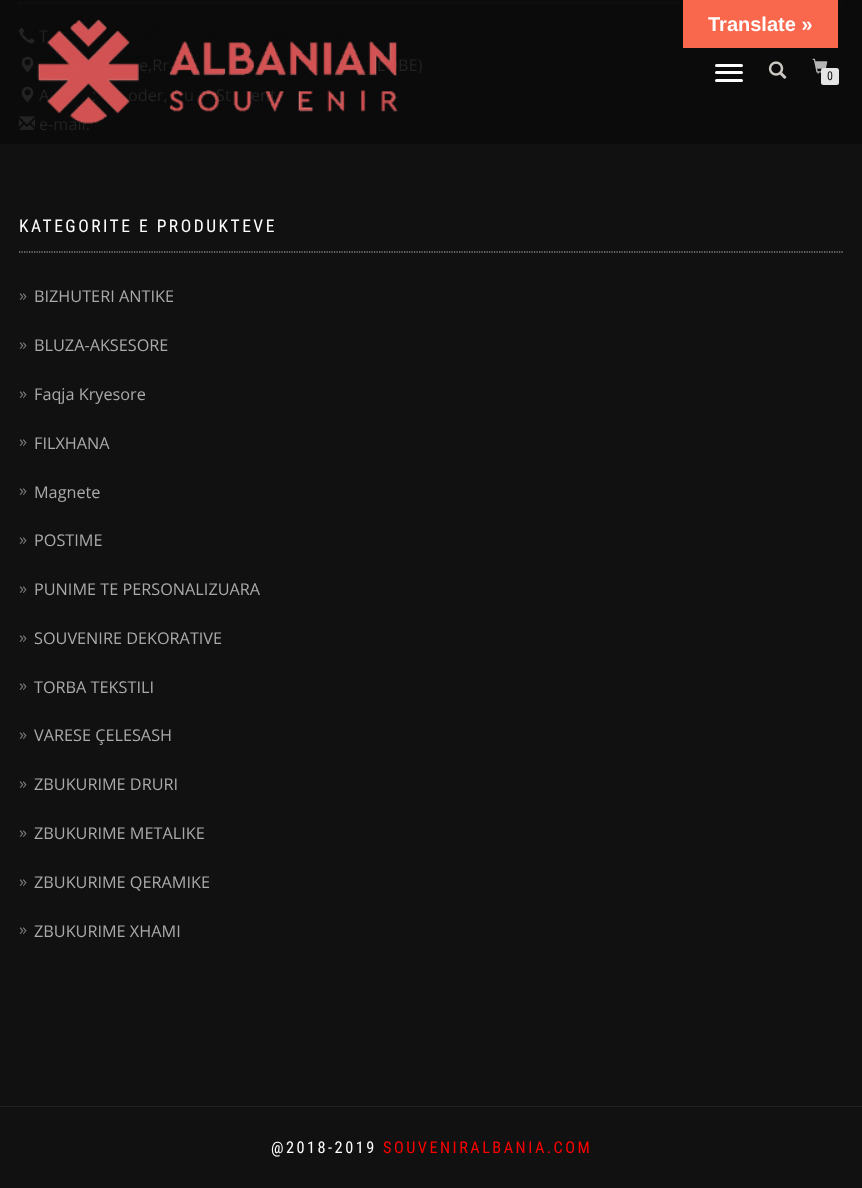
<?xml version="1.0" encoding="UTF-8"?>
<svg xmlns="http://www.w3.org/2000/svg" xmlns:xlink="http://www.w3.org/1999/xlink" width="862" height="1188">
  <rect width="100%" height="100%" fill="#111111" />
  <rect width="862" height="144" fill="#0b0b0b" />
  <path d="M 19 3 h 825" fill="none" stroke="#1c1c1c" stroke-width="1.2" stroke-dasharray="1.25 1.25" />
  <rect x="683" width="155" height="48" fill="#f9674d" />
  <image x="19" y="27" width="16" height="17" xlink:href="image1.png" />
  <image x="21" y="56" width="13" height="17" xlink:href="image2.png" />
  <image x="21" y="86" width="13" height="17" xlink:href="image2.png" />
  <image x="18" y="116" width="17" height="14" xlink:href="image3.png" />
  <path d="M 19 252 h 825" fill="none" stroke="#c2c2c2" stroke-width="1.2" stroke-dasharray="1.25 1.25" />
  <rect y="1106" width="862" height="1" fill="#202020" />
  <rect x="715" y="64" width="28" height="3" rx="1.5" fill="#ffffff" />
  <rect x="715" y="71" width="28" height="3" rx="1.5" fill="#ffffff" />
  <rect x="715" y="79" width="28" height="3" rx="1.5" fill="#ffffff" />
  <image x="768" y="61" width="19" height="18" xlink:href="image5.png" />
  <image x="812" y="58" width="16" height="16" xlink:href="image6.png" />
  <rect x="821" y="68" width="18" height="17" rx="2.5" fill="#e5e5e5" />
  <text x="708" y="31" style="font-family: Liberation Sans; font-size: 20px; font-weight: bold; fill: #ffffff">Translate »</text>
  <text x="39" y="42" style="font-family: Open Sans; font-size: 16.25px; fill: #222222">T</text>
  <text x="139" y="71" style="font-family: Open Sans; font-size: 16.25px; fill: #222222">e,Rr</text>
  <text x="377" y="71" style="font-family: Open Sans; font-size: 16.25px; fill: #222222">LOBE)</text>
  <text x="39" y="101" style="font-family: Open Sans; font-size: 16.25px; fill: #222222">A</text>
  <text x="92" y="101" style="font-family: Open Sans; font-size: 16.25px; fill: #222222">:</text>
  <text x="128" y="101" style="font-family: Open Sans; font-size: 16.25px; fill: #222222">oder,</text>
  <text x="184" y="101" style="font-family: Open Sans; font-size: 16.25px; fill: #222222">u</text>
  <text x="216" y="101" style="font-family: Open Sans; font-size: 16.25px; fill: #222222">St</text>
  <text x="251" y="101" style="font-family: Open Sans; font-size: 16.25px; fill: #222222">ent</text>
  <text x="39" y="130" style="font-family: Open Sans; font-size: 16.25px; fill: #222222">e-mail:</text>
  <text x="19" y="232" style="font-family: Roboto Condensed; font-size: 17.5px; letter-spacing: 2.5px; fill: #ffffff">KATEGORITE E PRODUKTEVE</text>
  <text x="19" y="301" style="font-family: Open Sans; font-size: 16.25px; fill: #777777">»</text>
  <text x="34" y="302" style="font-family: Open Sans; font-size: 16.25px; fill: #aaaaaa">BIZHUTERI ANTIKE</text>
  <text x="19" y="350" style="font-family: Open Sans; font-size: 16.25px; fill: #777777">»</text>
  <text x="34" y="351" style="font-family: Open Sans; font-size: 16.25px; fill: #aaaaaa">BLUZA-AKSESORE</text>
  <text x="19" y="399" style="font-family: Open Sans; font-size: 16.25px; fill: #777777">»</text>
  <text x="34" y="400" style="font-family: Open Sans; font-size: 16.25px; fill: #aaaaaa">Faqja Kryesore</text>
  <text x="19" y="447" style="font-family: Open Sans; font-size: 16.25px; fill: #777777">»</text>
  <text x="34" y="449" style="font-family: Open Sans; font-size: 16.25px; fill: #aaaaaa">FILXHANA</text>
  <text x="19" y="496" style="font-family: Open Sans; font-size: 16.25px; fill: #777777">»</text>
  <text x="34" y="498" style="font-family: Open Sans; font-size: 16.25px; fill: #aaaaaa">Magnete</text>
  <text x="19" y="545" style="font-family: Open Sans; font-size: 16.25px; fill: #777777">»</text>
  <text x="34" y="546" style="font-family: Open Sans; font-size: 16.25px; fill: #aaaaaa">POSTIME</text>
  <text x="19" y="594" style="font-family: Open Sans; font-size: 16.25px; fill: #777777">»</text>
  <text x="34" y="595" style="font-family: Open Sans; font-size: 16.25px; fill: #aaaaaa">PUNIME TE PERSONALIZUARA</text>
  <text x="19" y="643" style="font-family: Open Sans; font-size: 16.25px; fill: #777777">»</text>
  <text x="34" y="644" style="font-family: Open Sans; font-size: 16.25px; fill: #aaaaaa">SOUVENIRE DEKORATIVE</text>
  <text x="19" y="691" style="font-family: Open Sans; font-size: 16.25px; fill: #777777">»</text>
  <text x="34" y="693" style="font-family: Open Sans; font-size: 16.25px; fill: #aaaaaa">TORBA TEKSTILI</text>
  <text x="19" y="740" style="font-family: Open Sans; font-size: 16.25px; fill: #777777">»</text>
  <text x="34" y="741" style="font-family: Open Sans; font-size: 16.25px; fill: #aaaaaa">VARESE ÇELESASH</text>
  <text x="19" y="789" style="font-family: Open Sans; font-size: 16.25px; fill: #777777">»</text>
  <text x="34" y="790" style="font-family: Open Sans; font-size: 16.25px; fill: #aaaaaa">ZBUKURIME DRURI</text>
  <text x="19" y="838" style="font-family: Open Sans; font-size: 16.25px; fill: #777777">»</text>
  <text x="34" y="839" style="font-family: Open Sans; font-size: 16.25px; fill: #aaaaaa">ZBUKURIME METALIKE</text>
  <text x="19" y="887" style="font-family: Open Sans; font-size: 16.25px; fill: #777777">»</text>
  <text x="34" y="888" style="font-family: Open Sans; font-size: 16.25px; fill: #aaaaaa">ZBUKURIME QERAMIKE</text>
  <text x="19" y="935" style="font-family: Open Sans; font-size: 16.25px; fill: #777777">»</text>
  <text x="34" y="937" style="font-family: Open Sans; font-size: 16.25px; fill: #aaaaaa">ZBUKURIME XHAMI</text>
  <text x="271" y="1153" style="font-family: Roboto Condensed; font-size: 16.25px; letter-spacing: 2.5px; fill: #ffffff">@2018-2019</text>
  <text x="383" y="1153" style="font-family: Roboto Condensed; font-size: 16.25px; letter-spacing: 2.5px; fill: #ff0000">SOUVENIRALBANIA.COM</text>
  <image x="37" y="19" width="361" height="105" xlink:href="image4.png" />
  <text x="827" y="80" style="font-family: Roboto Condensed; font-size: 12px; fill: #111111">0</text>
</svg>
